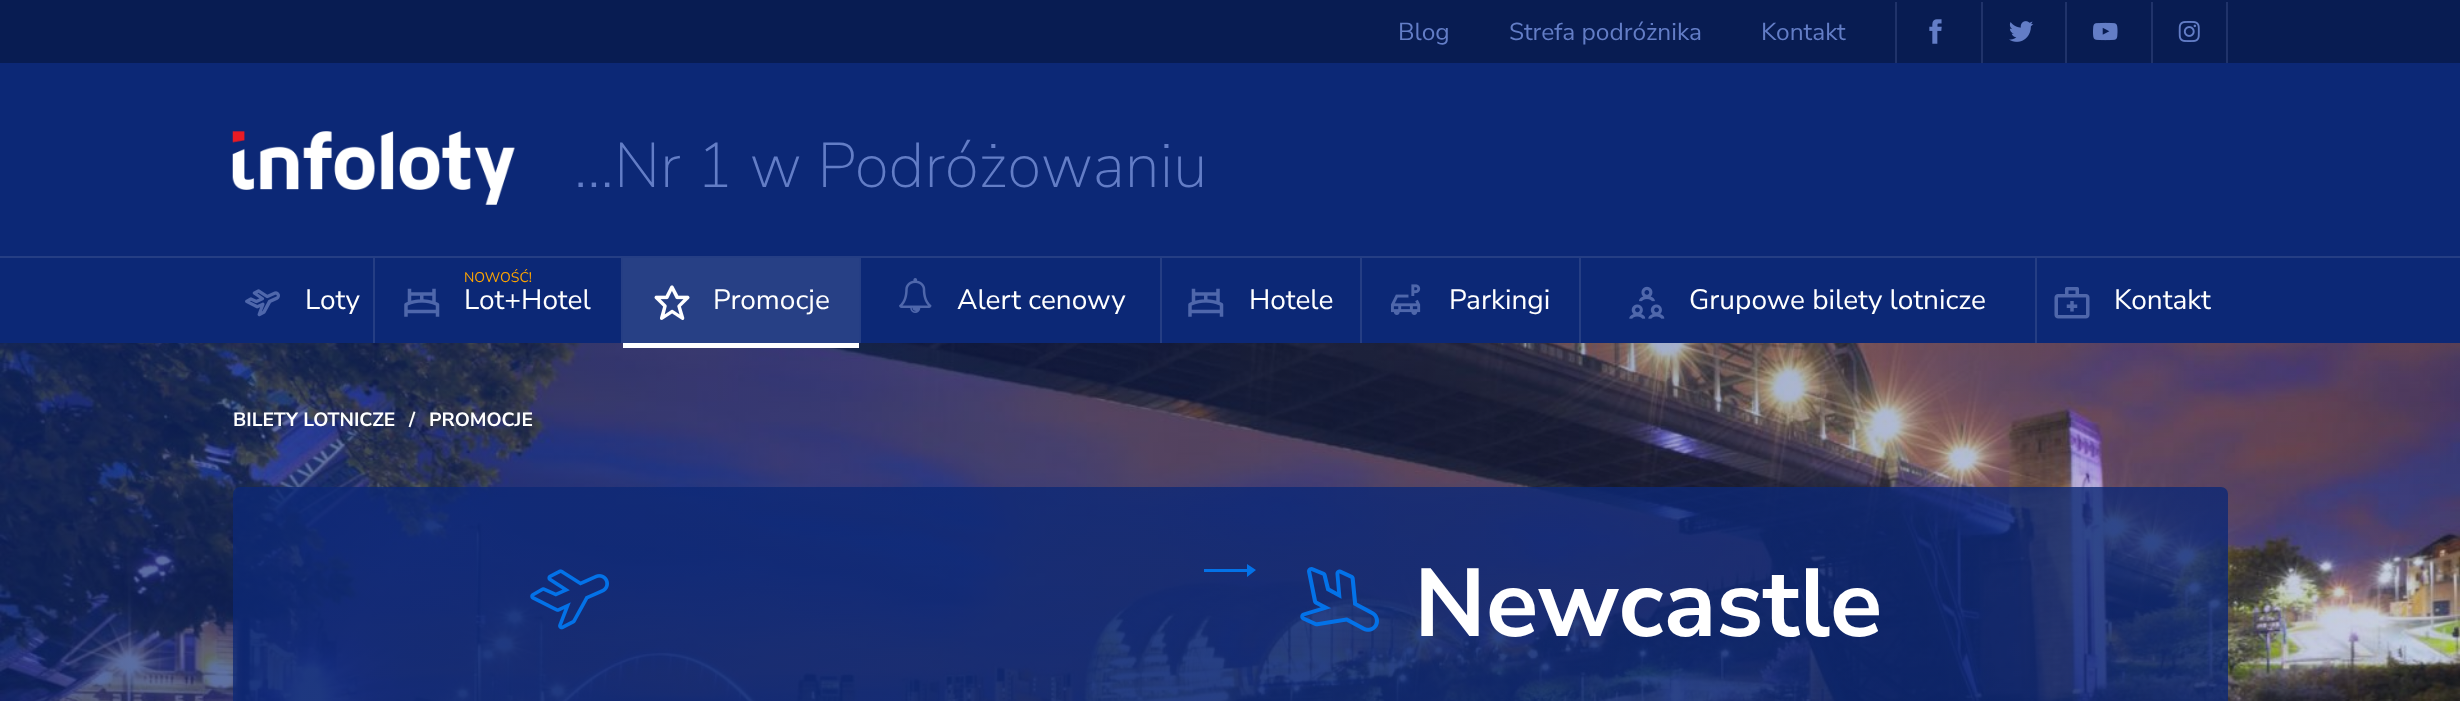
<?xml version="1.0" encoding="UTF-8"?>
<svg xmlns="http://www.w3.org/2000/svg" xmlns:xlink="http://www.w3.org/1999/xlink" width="2460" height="701">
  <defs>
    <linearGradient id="g1" gradientUnits="userSpaceOnUse" x1="0" y1="586" x2="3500" y2="586"><stop offset="0" stop-color="#0c2876" stop-opacity="0.7" /><stop offset="1" stop-color="#0c2876" stop-opacity="0" /></linearGradient>
  </defs>
  <rect width="100%" height="100%" fill="#ffffff" />
  <rect y="63" width="2460" height="280" fill="#0c2876" />
  <rect width="2460" height="63" fill="#081c52" />
  <rect x="1895" y="2" width="2" height="61" fill="#20336a" />
  <image x="1929" y="19" width="13" height="25" xlink:href="image1.png" />
  <rect x="1981" y="2" width="2" height="61" fill="#20336a" />
  <image x="2009" y="21" width="25" height="21" xlink:href="image2.png" />
  <rect x="2065" y="2" width="2" height="61" fill="#20336a" />
  <image x="2093" y="22" width="25" height="19" xlink:href="image3.png" />
  <rect x="2226" y="2" width="2" height="61" fill="#20336a" />
  <rect x="2151" y="2" width="2" height="61" fill="#20336a" />
  <image x="2178" y="21" width="22" height="21" xlink:href="image4.png" />
  <rect x="373" y="256" width="2" height="87" fill="#253e84" />
  <rect x="621" y="256" width="2" height="87" fill="#253e84" />
  <rect x="859" y="256" width="2" height="87" fill="#253e84" />
  <rect x="1160" y="256" width="2" height="87" fill="#253e84" />
  <rect x="1360" y="256" width="2" height="87" fill="#253e84" />
  <rect x="1579" y="256" width="2" height="87" fill="#253e84" />
  <rect x="2035" y="256" width="2" height="87" fill="#253e84" />
  <rect y="256" width="2460" height="2" fill="#253e84" />
  <image x="245" y="289" width="35" height="28" xlink:href="image5.png" />
  <image x="404" y="288" width="36" height="29" xlink:href="image6.png" />
  <rect x="623" y="258" width="236" height="85" fill="#274085" />
  <image x="654" y="285" width="36" height="36" xlink:href="image7.png" />
  <image x="0" y="343" width="2460" height="358" xlink:href="image13.png" />
  <rect x="233" y="487" width="1995" height="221" rx="7" fill="#0c2876" fill-opacity="0.8" />
  <rect y="343" width="2460" height="358" fill="url(#g1)" />
  <rect x="623" y="343" width="236" height="5" fill="#ffffff" />
  <image x="899" y="278" width="33" height="35" xlink:href="image8.png" />
  <image x="1188" y="288" width="36" height="29" xlink:href="image6.png" />
  <image x="1391" y="284" width="30" height="31" xlink:href="image9.png" />
  <image x="1629" y="286" width="36" height="33" xlink:href="image10.png" />
  <image x="2054" y="287" width="36" height="32" xlink:href="image11.png" />
  <image x="232" y="131" width="283" height="74" xlink:href="image12.png" />
  <image x="530" y="569" width="79" height="61" xlink:href="image14.png" />
  <path d="M 1256 570 l -9 -6 v 5 h -43 v 3 h 43 v 5 z" fill="#0372e8" />
  <image x="1300" y="567" width="79" height="65" xlink:href="image15.png" />
  <text x="1398" y="40" style="font-family: Nunito Sans; font-size: 24.5px; fill: #637dc6">Blog</text>
  <text x="1509" y="40" style="font-family: Nunito Sans; font-size: 24.5px; fill: #637dc6">Strefa podróżnika</text>
  <text x="1761" y="40" style="font-family: Nunito Sans; font-size: 24.5px; fill: #637dc6">Kontakt</text>
  <text x="305" y="309" style="font-family: Nunito Sans; font-size: 28px; fill: #ffffff">Loty</text>
  <text x="464" y="282" style="font-family: Nunito Sans; font-size: 14px; fill: #ffa500">NOWOŚĆ!</text>
  <text x="464" y="309" style="font-family: Nunito Sans; font-size: 28px; fill: #ffffff">Lot+Hotel</text>
  <text x="713" y="309" style="font-family: Nunito Sans; font-size: 28px; fill: #ffffff">Promocje</text>
  <text x="957" y="309" style="font-family: Nunito Sans; font-size: 28px; fill: #ffffff">Alert cenowy</text>
  <text x="1249" y="309" style="font-family: Nunito Sans; font-size: 28px; fill: #ffffff">Hotele</text>
  <text x="1449" y="309" style="font-family: Nunito Sans; font-size: 28px; fill: #ffffff">Parkingi</text>
  <text x="1689" y="309" style="font-family: Nunito Sans; font-size: 28px; fill: #ffffff">Grupowe bilety lotnicze</text>
  <text x="2114" y="309" style="font-family: Nunito Sans; font-size: 28px; fill: #ffffff">Kontakt</text>
  <text x="574" y="187" style="font-family: Nunito Sans; font-size: 63px; font-weight: 200; fill: #637dc6">...Nr 1 w Podróżowaniu</text>
  <text x="233" y="426" style="font-family: Nunito Sans; font-size: 19.25px; font-weight: bold; fill: #ffffff">BILETY LOTNICZE</text>
  <text x="409" y="426" style="font-family: Nunito Sans; font-size: 19.25px; font-weight: bold; fill: #ffffff">/</text>
  <text x="429" y="426" style="font-family: Nunito Sans; font-size: 19.25px; font-weight: bold; fill: #ffffff">PROMOCJE</text>
  <text x="1414" y="636" style="font-family: Nunito Sans; font-size: 96.25px; font-weight: bold; fill: #ffffff">Newcastle</text>
</svg>
